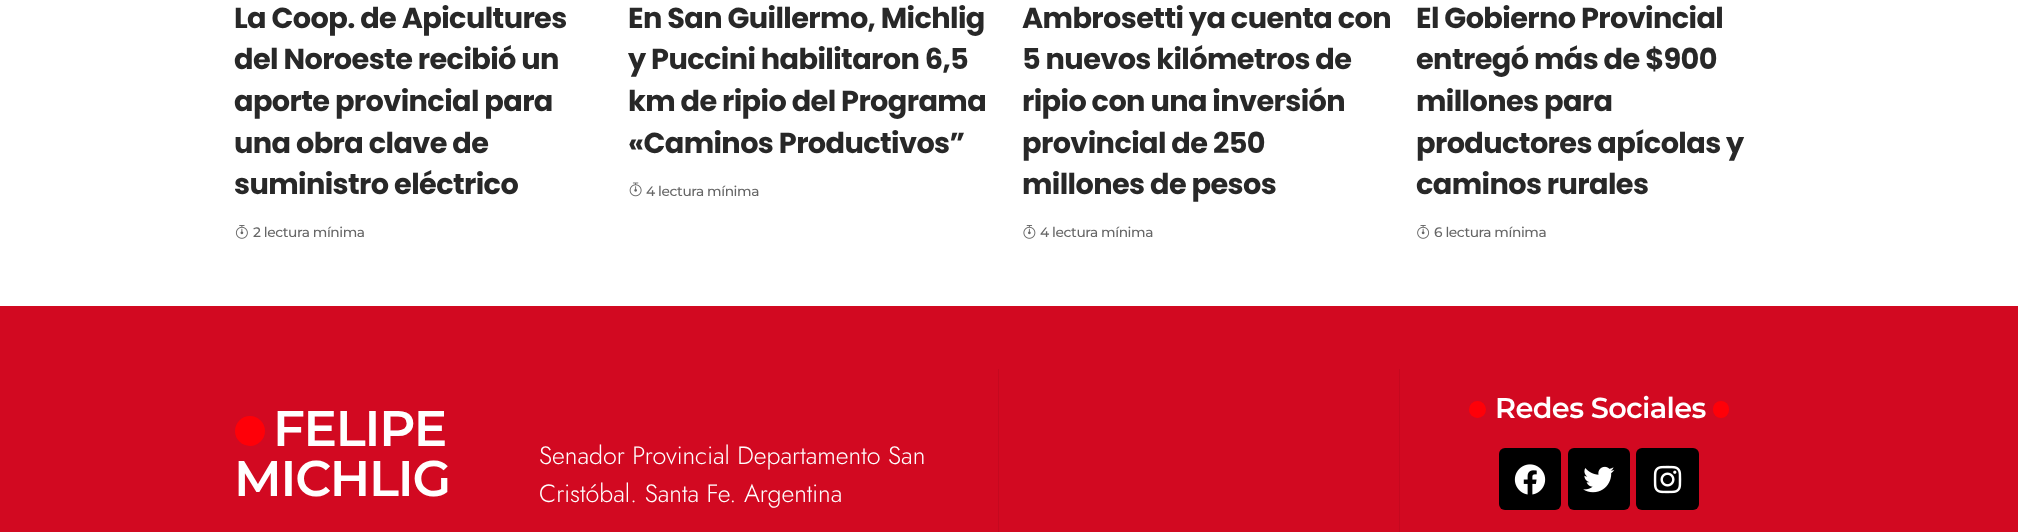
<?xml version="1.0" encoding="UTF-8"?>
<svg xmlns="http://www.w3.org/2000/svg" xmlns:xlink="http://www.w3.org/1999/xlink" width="2018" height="532">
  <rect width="100%" height="100%" fill="#ffffff" />
  <image x="235" y="225" width="13" height="14" xlink:href="image1.png" />
  <image x="629" y="182" width="13" height="15" xlink:href="image2.png" />
  <image x="1023" y="225" width="13" height="14" xlink:href="image3.png" />
  <image x="1417" y="225" width="13" height="14" xlink:href="image4.png" />
  <rect y="306" width="2018" height="226" fill="#d20921" />
  <rect x="1399" y="369" width="1" height="163" fill="#c5081f" />
  <circle cx="1477.5" cy="409.5" r="8.5" fill="#ff0008" />
  <rect x="1713" y="401" width="16" height="17" rx="8" fill="#ff0008" />
  <rect x="1499" y="448" width="62" height="62" rx="6" fill="#000000" />
  <image x="1514" y="464" width="32" height="31" xlink:href="image5.png" />
  <rect x="1568" y="448" width="62" height="62" rx="6" fill="#000000" />
  <image x="1583" y="466" width="32" height="27" xlink:href="image6.png" />
  <rect x="1636" y="448" width="63" height="62" rx="6" fill="#000000" />
  <image x="1653" y="465" width="29" height="29" xlink:href="image7.png" />
  <rect x="998" y="369" width="1" height="163" fill="#c5081f" />
  <circle cx="250" cy="431" r="15" fill="#ff0008" />
  <text x="234" y="28" style="font-family: Poppins; font-size: 28.75px; font-weight: bold; letter-spacing: -0.6px; fill: #282828">La Coop. de Apicultures</text>
  <text x="234" y="69" style="font-family: Poppins; font-size: 28.75px; font-weight: bold; letter-spacing: -0.6px; fill: #282828">del Noroeste recibió un</text>
  <text x="234" y="111" style="font-family: Poppins; font-size: 28.75px; font-weight: bold; letter-spacing: -0.6px; fill: #282828">aporte provincial para</text>
  <text x="234" y="153" style="font-family: Poppins; font-size: 28.75px; font-weight: bold; letter-spacing: -0.6px; fill: #282828">una obra clave de</text>
  <text x="234" y="194" style="font-family: Poppins; font-size: 28.75px; font-weight: bold; letter-spacing: -0.6px; fill: #282828">suministro eléctrico</text>
  <text x="253" y="237" style="font-family: Montserrat; font-size: 13.75px; font-weight: 500; letter-spacing: -0.4px; fill: #666666">2 lectura mínima</text>
  <text x="628" y="28" style="font-family: Poppins; font-size: 28.75px; font-weight: bold; letter-spacing: -0.6px; fill: #282828">En San Guillermo, Michlig</text>
  <text x="628" y="69" style="font-family: Poppins; font-size: 28.75px; font-weight: bold; letter-spacing: -0.6px; fill: #282828">y Puccini habilitaron 6,5</text>
  <text x="628" y="111" style="font-family: Poppins; font-size: 28.75px; font-weight: bold; letter-spacing: -0.6px; fill: #282828">km de ripio del Programa</text>
  <text x="628" y="153" style="font-family: Poppins; font-size: 28.75px; font-weight: bold; letter-spacing: -0.6px; fill: #282828">«Caminos Productivos”</text>
  <text x="646" y="196" style="font-family: Montserrat; font-size: 13.75px; font-weight: 500; letter-spacing: -0.4px; fill: #666666">4 lectura mínima</text>
  <text x="1022" y="28" style="font-family: Poppins; font-size: 28.75px; font-weight: bold; letter-spacing: -0.6px; fill: #282828">Ambrosetti ya cuenta con</text>
  <text x="1022" y="69" style="font-family: Poppins; font-size: 28.75px; font-weight: bold; letter-spacing: -0.6px; fill: #282828">5 nuevos kilómetros de</text>
  <text x="1022" y="111" style="font-family: Poppins; font-size: 28.75px; font-weight: bold; letter-spacing: -0.6px; fill: #282828">ripio con una inversión</text>
  <text x="1022" y="153" style="font-family: Poppins; font-size: 28.75px; font-weight: bold; letter-spacing: -0.6px; fill: #282828">provincial de 250</text>
  <text x="1022" y="194" style="font-family: Poppins; font-size: 28.75px; font-weight: bold; letter-spacing: -0.6px; fill: #282828">millones de pesos</text>
  <text x="1040" y="237" style="font-family: Montserrat; font-size: 13.75px; font-weight: 500; letter-spacing: -0.4px; fill: #666666">4 lectura mínima</text>
  <text x="1416" y="28" style="font-family: Poppins; font-size: 28.75px; font-weight: bold; letter-spacing: -0.6px; fill: #282828">El Gobierno Provincial</text>
  <text x="1416" y="69" style="font-family: Poppins; font-size: 28.75px; font-weight: bold; letter-spacing: -0.6px; fill: #282828">entregó más de $900</text>
  <text x="1416" y="111" style="font-family: Poppins; font-size: 28.75px; font-weight: bold; letter-spacing: -0.6px; fill: #282828">millones para</text>
  <text x="1416" y="153" style="font-family: Poppins; font-size: 28.75px; font-weight: bold; letter-spacing: -0.6px; fill: #282828">productores apícolas y</text>
  <text x="1416" y="194" style="font-family: Poppins; font-size: 28.75px; font-weight: bold; letter-spacing: -0.6px; fill: #282828">caminos rurales</text>
  <text x="1434" y="237" style="font-family: Montserrat; font-size: 13.75px; font-weight: 500; letter-spacing: -0.4px; fill: #666666">6 lectura mínima</text>
  <text x="1495" y="418" style="font-family: Montserrat; font-size: 28.75px; font-weight: 600; letter-spacing: -0.6px; fill: #ffffff">Redes Sociales</text>
  <text x="273" y="446" style="font-family: Montserrat; font-size: 50px; font-weight: 600; letter-spacing: -1.25px; fill: #ffffff">FELIPE</text>
  <text x="234" y="496" style="font-family: Montserrat; font-size: 50px; font-weight: 600; letter-spacing: -1.25px; fill: #ffffff">MICHLIG</text>
  <text x="539" y="464" style="font-family: Jost; font-size: 25px; font-weight: 300; fill: #ffffff">Senador Provincial Departamento San</text>
  <text x="539" y="502" style="font-family: Jost; font-size: 25px; font-weight: 300; fill: #ffffff">Cristóbal. Santa Fe. Argentina</text>
</svg>
